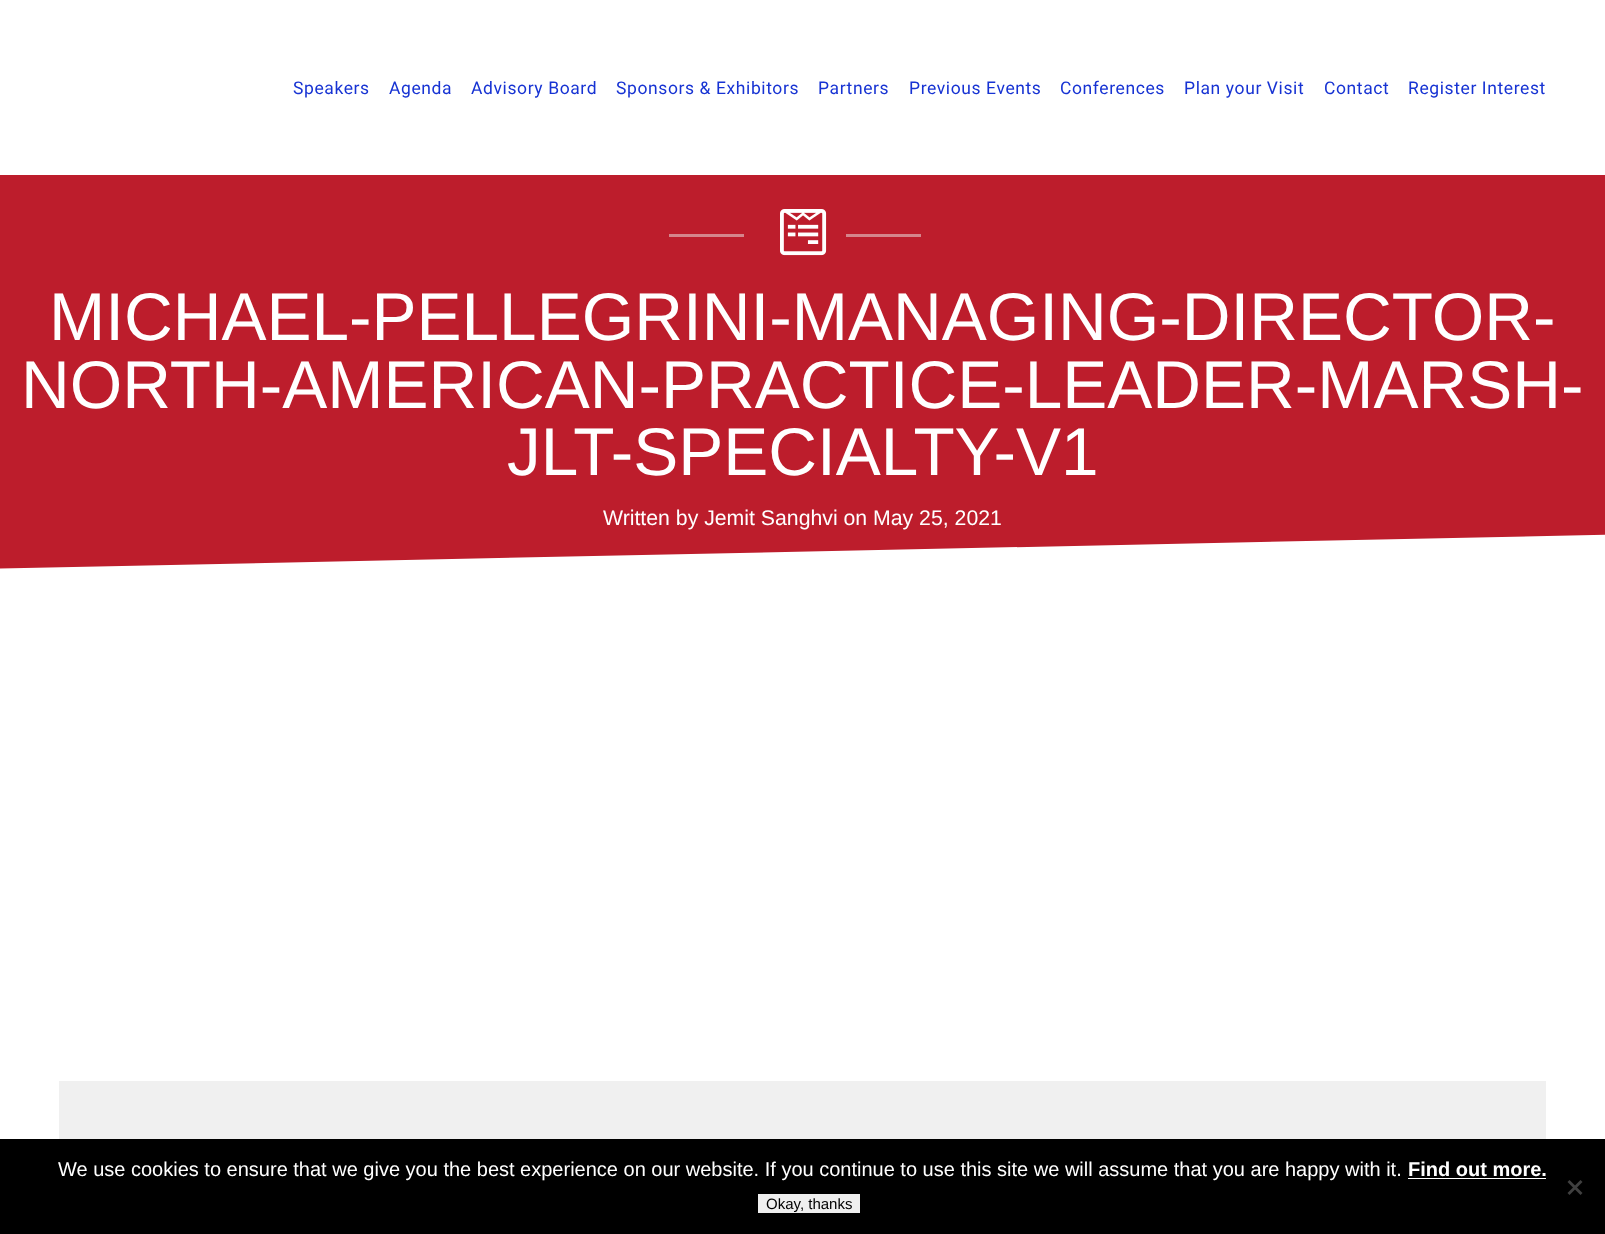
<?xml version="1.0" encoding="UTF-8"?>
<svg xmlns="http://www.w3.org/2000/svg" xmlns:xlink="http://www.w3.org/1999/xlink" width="1605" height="1234">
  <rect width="100%" height="100%" fill="#ffffff" />
  <path d="M -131 -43 l 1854 -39 l 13 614 l -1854 39 z" fill="#bd1d2c" />
  <rect width="1605" height="175" fill="#ffffff" />
  <rect x="669" y="234" width="75" height="3" fill="#d5858c" />
  <image x="780" y="209" width="47" height="47" xlink:href="image1.png" />
  <rect x="846" y="234" width="75" height="3" fill="#d5858c" />
  <rect x="59" y="1081" width="1487" height="58" fill="#f0f0f0" />
  <rect y="1139" width="1605" height="95" fill="#000000" />
  <rect x="1408" y="1178" width="138" height="1" fill="#ffffff" />
  <path d="M 1580.5 1180 l 2 2 l -13 13 l -2 -2 z" fill="#404040" />
  <path d="M 1567.5 1182 l 2 -2 l 13 13 l -2 2 z" fill="#404040" />
  <rect x="758" y="1194" width="102" height="19" fill="#efefef" />
  <text x="293" y="94" style="font-family: Roboto; font-size: 17.5px; letter-spacing: 0.6px; fill: #1733d3">Speakers</text>
  <text x="389" y="94" style="font-family: Roboto; font-size: 17.5px; letter-spacing: 0.6px; fill: #1733d3">Agenda</text>
  <text x="471" y="94" style="font-family: Roboto; font-size: 17.5px; letter-spacing: 0.6px; fill: #1733d3">Advisory Board</text>
  <text x="616" y="94" style="font-family: Roboto; font-size: 17.5px; letter-spacing: 0.6px; fill: #1733d3">Sponsors &amp; Exhibitors</text>
  <text x="818" y="94" style="font-family: Roboto; font-size: 17.5px; letter-spacing: 0.6px; fill: #1733d3">Partners</text>
  <text x="909" y="94" style="font-family: Roboto; font-size: 17.5px; letter-spacing: 0.6px; fill: #1733d3">Previous Events</text>
  <text x="1060" y="94" style="font-family: Roboto; font-size: 17.5px; letter-spacing: 0.6px; fill: #1733d3">Conferences</text>
  <text x="1184" y="94" style="font-family: Roboto; font-size: 17.5px; letter-spacing: 0.6px; fill: #1733d3">Plan your Visit</text>
  <text x="1324" y="94" style="font-family: Roboto; font-size: 17.5px; letter-spacing: 0.6px; fill: #1733d3">Contact</text>
  <text x="1408" y="94" style="font-family: Roboto; font-size: 17.5px; letter-spacing: 0.6px; fill: #1733d3">Register Interest</text>
  <text x="49" y="340" style="font-family: Liberation Sans; font-size: 67.5px; fill: #ffffff">MICHAEL-PELLEGRINI-MANAGING-DIRECTOR-</text>
  <text x="21" y="408" style="font-family: Liberation Sans; font-size: 67.5px; fill: #ffffff">NORTH-AMERICAN-PRACTICE-LEADER-MARSH-</text>
  <text x="507" y="475" style="font-family: Liberation Sans; font-size: 67.5px; fill: #ffffff">JLT-SPECIALTY-V1</text>
  <text x="603" y="525" style="font-family: Liberation Sans; font-size: 21.25px; fill: #ffffff">Written by Jemit Sanghvi on May 25, 2021</text>
  <text x="58" y="1176" style="font-family: Liberation Sans; font-size: 20px; fill: #ffffff">We use cookies to ensure that we give you the best experience on our website. If you continue to use this site we will assume that you are happy with it.</text>
  <text x="1408" y="1176" style="font-family: Liberation Sans; font-size: 20px; font-weight: bold; fill: #ffffff">Find out more.</text>
  <text x="766" y="1209" style="font-family: Liberation Sans; font-size: 15px; fill: #000000">Okay, thanks</text>
</svg>
